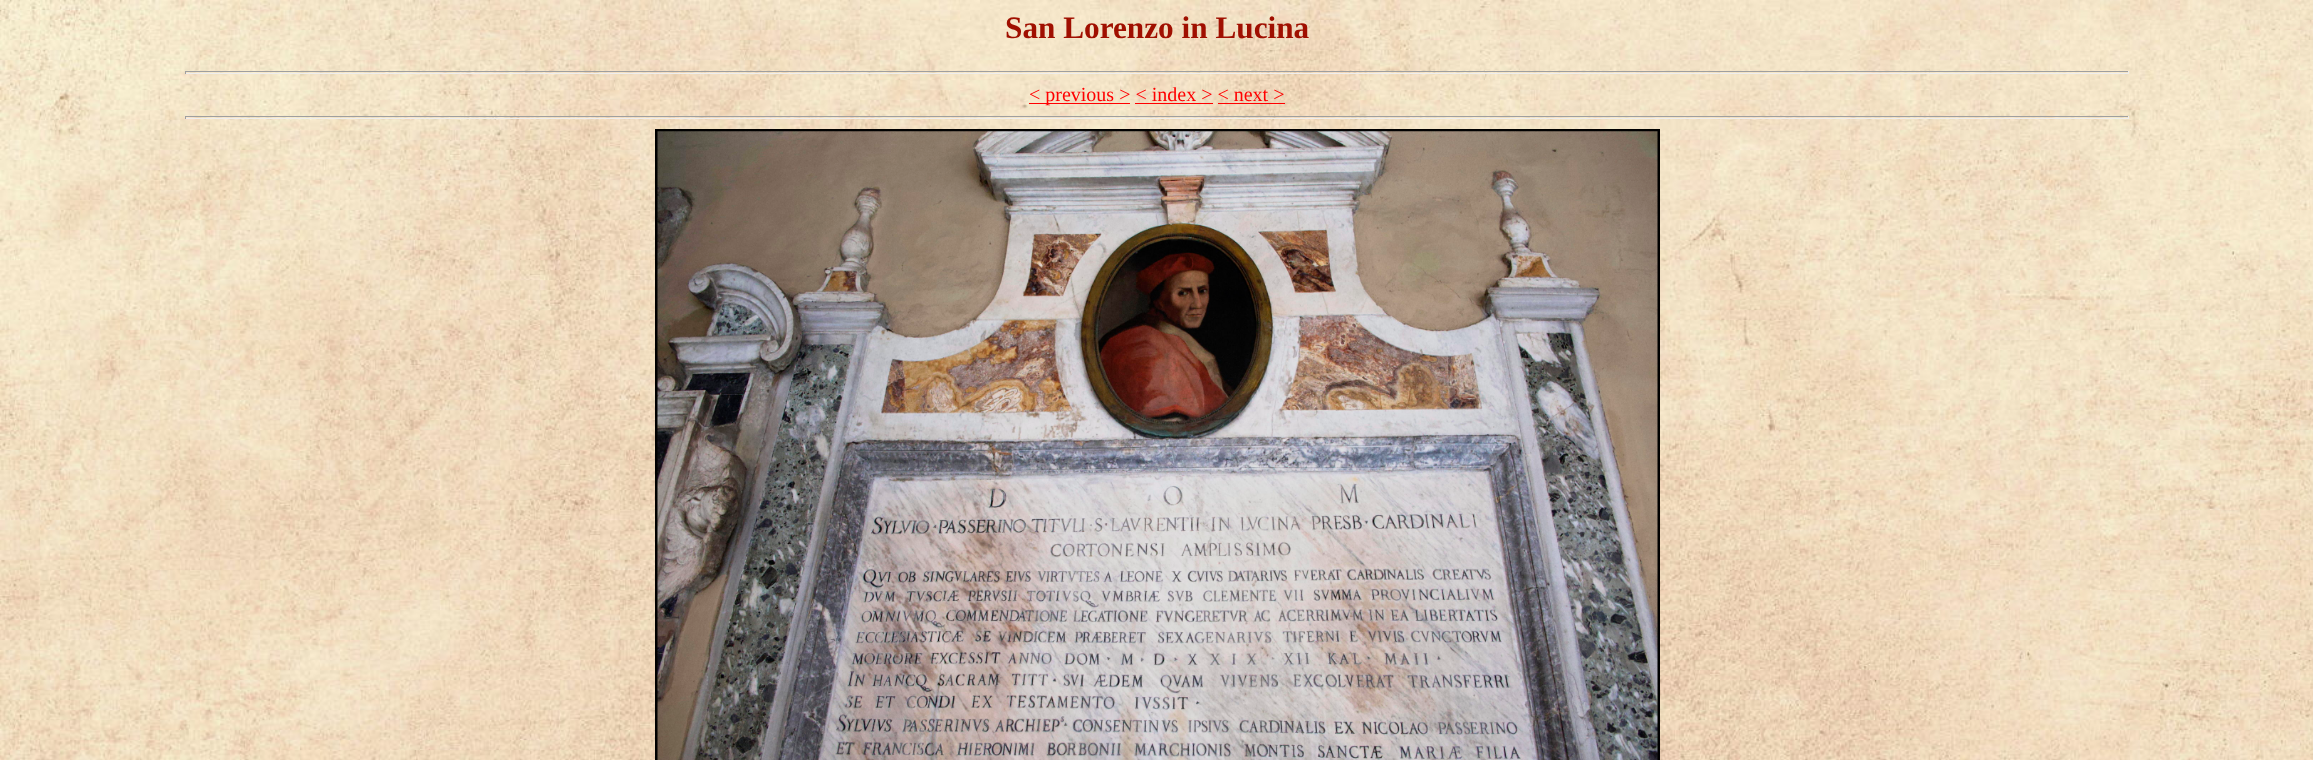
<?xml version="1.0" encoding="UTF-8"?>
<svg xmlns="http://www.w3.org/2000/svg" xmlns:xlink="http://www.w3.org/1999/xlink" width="2313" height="760">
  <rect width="100%" height="100%" fill="#ffffff" />
  <image x="0" y="0" width="2313" height="760" xlink:href="image1.png" />
  <rect x="185" y="71" width="1944" height="1" fill="#9f9f9f" />
  <rect x="2128" y="71" width="1" height="3" fill="#eeeeee" />
  <rect x="185" y="73" width="1944" height="1" fill="#eeeeee" />
  <rect x="185" y="71" width="1" height="3" fill="#9f9f9f" />
  <rect x="1029" y="103" width="101" height="1" fill="#ff0000" />
  <rect x="1135" y="103" width="78" height="1" fill="#ff0000" />
  <rect x="1218" y="103" width="67" height="1" fill="#ff0000" />
  <rect x="185" y="116" width="1944" height="1" fill="#9f9f9f" />
  <rect x="2128" y="116" width="1" height="3" fill="#eeeeee" />
  <rect x="185" y="118" width="1944" height="1" fill="#eeeeee" />
  <rect x="185" y="116" width="1" height="3" fill="#9f9f9f" />
  <rect x="656.5" y="130.5" width="1002" height="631" fill="none" stroke="#000000" stroke-width="3" />
  <image x="657" y="131" width="1001" height="629" xlink:href="image2.png" />
  <text x="1005" y="38" style="font-family: Liberation Serif; font-size: 31.25px; font-weight: bold; fill: #a00f00">San Lorenzo in Lucina</text>
  <text x="1029" y="101" style="font-family: Liberation Serif; font-size: 20px; fill: #ff0000">&lt; previous &gt; &lt; index &gt; &lt; next &gt;</text>
</svg>
